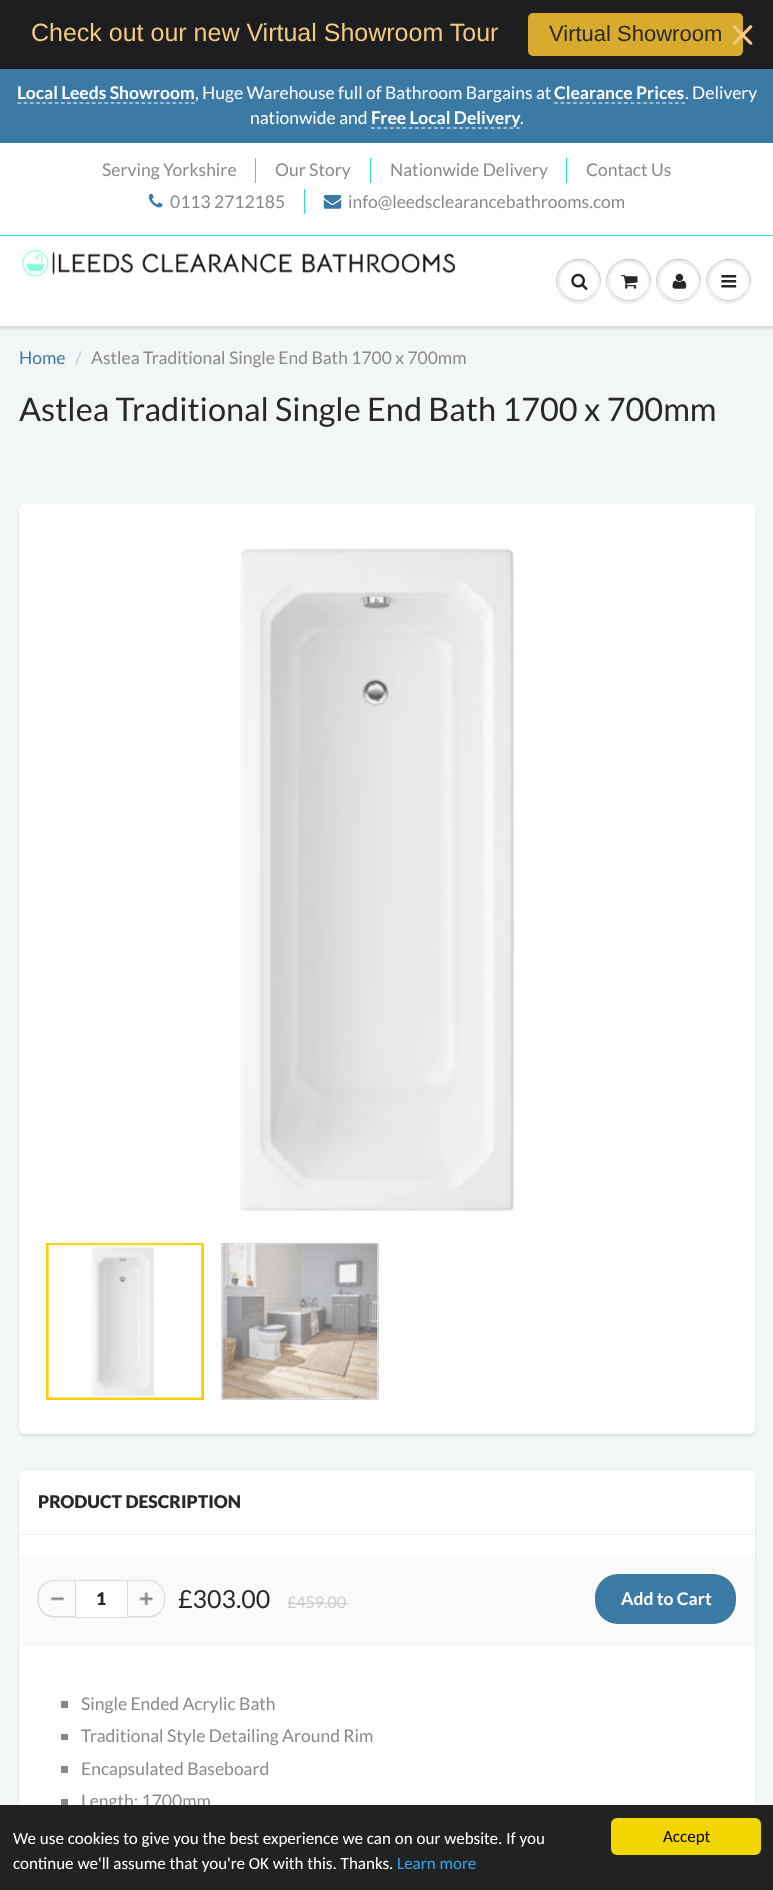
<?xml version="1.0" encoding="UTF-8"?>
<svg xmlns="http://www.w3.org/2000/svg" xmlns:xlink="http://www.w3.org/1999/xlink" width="773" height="1890">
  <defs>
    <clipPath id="clip1"><rect x="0" y="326" width="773" height="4" /></clipPath>
  </defs>
  <rect width="100%" height="100%" fill="#ffffff" />
  <rect width="773" height="69" fill="#1e1e20" />
  <rect x="528" y="13" width="215" height="43" rx="5" fill="#d8ab2e" />
  <image x="732" y="25" width="21" height="20" xlink:href="image1.png" />
  <rect y="69" width="773" height="74" fill="#3b7aa4" />
  <path d="M 17.5 103 h 177.5" fill="none" stroke="#ffffff" stroke-width="1.2" stroke-dasharray="3.75 2.45" />
  <path d="M 554 103 h 131" fill="none" stroke="#ffffff" stroke-width="1.2" stroke-dasharray="3.75 2.62" />
  <path d="M 371 128 h 149" fill="none" stroke="#ffffff" stroke-width="1.2" stroke-dasharray="3.75 2.55" />
  <rect x="255" y="158" width="1" height="25" fill="#24e1e1" />
  <rect x="370" y="158" width="1" height="25" fill="#24e1e1" />
  <rect x="566" y="158" width="1" height="25" fill="#24e1e1" />
  <image x="148" y="193" width="15" height="15" xlink:href="image2.png" />
  <rect x="304" y="189" width="1" height="25" fill="#24e1e1" />
  <image x="323" y="195" width="19" height="14" xlink:href="image3.png" />
  <rect y="326" width="773" height="1479" fill="#f3f6f6" />
  <g clip-path="url(#clip1)">
    <rect y="238" width="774" height="91" fill="#0b191c" fill-opacity="0.12" filter="blur(1px)" />
  </g>
  <rect y="235" width="773" height="1" fill="#24e1e1" />
  <image x="22" y="249" width="434" height="28" xlink:href="image4.png" />
  <circle cx="578.5" cy="281.5" r="22.5" fill="#edefef" />
  <path d="M 579 260 c 16 0 23 14 21 27 c 2 -6 1 -13 -3 -18 c -15 -23 -49 -3 -39 21 c -4 -13 3 -30 21 -30 z" fill="#c9cbcb" />
  <path d="M 560 282 c 0 5 2 10 5.5 13.5 c 14.5 14.5 39 -1.5 31 -20.5 c 6 18.5 -16.5 33.5 -31 19.5 c -3.5 -3 -5.5 -8 -5.5 -12.5 z" fill="#c9cbcb" />
  <rect x="560" y="263" width="38" height="37" rx="18.5" fill="#ffffff" />
  <path d="M 579 264 c 16 0 22 17 16 28 c 14 -20 -18 -42 -32 -21 c -3 4 -4 10 -2 15 c -2 -10 4 -22 18 -22 z" fill="#ffffff" />
  <image x="571" y="273" width="17" height="17" xlink:href="image5.png" />
  <circle cx="628.5" cy="281.5" r="22.5" fill="#edefef" />
  <path d="M 629 260 c 16 0 23 14 21 27 c 2 -6 1 -13 -3 -18 c -15 -23 -49 -3 -39 21 c -4 -13 3 -30 21 -30 z" fill="#c9cbcb" />
  <path d="M 610 282 c 0 5 2 10 5.5 13.5 c 14.5 14.5 39 -1.5 31 -20.5 c 6 18.5 -16.5 33.5 -31 19.5 c -3.5 -3 -5.5 -8 -5.5 -12.5 z" fill="#c9cbcb" />
  <rect x="610" y="263" width="38" height="37" rx="18.5" fill="#ffffff" />
  <path d="M 629 264 c 16 0 22 17 16 28 c 14 -20 -18 -42 -32 -21 c -3 4 -4 10 -2 15 c -2 -10 4 -22 18 -22 z" fill="#ffffff" />
  <image x="621" y="275" width="17" height="14" xlink:href="image6.png" />
  <circle cx="678.5" cy="281.5" r="22.5" fill="#edefef" />
  <path d="M 679 260 c 16 0 23 14 21 27 c 2 -6 1 -13 -3 -18 c -15 -23 -49 -3 -39 21 c -4 -13 3 -30 21 -30 z" fill="#c9cbcb" />
  <path d="M 660 282 c 0 5 2 10 5.5 13.5 c 14.5 14.5 39 -1.5 31 -20.5 c 6 18.5 -16.5 33.5 -31 19.5 c -3.5 -3 -5.5 -8 -5.5 -12.5 z" fill="#c9cbcb" />
  <rect x="660" y="263" width="38" height="37" rx="18.5" fill="#ffffff" />
  <path d="M 679 264 c 16 0 22 17 16 28 c 14 -20 -18 -42 -32 -21 c -3 4 -4 10 -2 15 c -2 -10 4 -22 18 -22 z" fill="#ffffff" />
  <image x="672" y="273" width="15" height="16" xlink:href="image7.png" />
  <circle cx="728.5" cy="281.5" r="22.5" fill="#edefef" />
  <path d="M 729 260 c 16 0 23 14 21 27 c 2 -6 1 -13 -3 -18 c -15 -23 -49 -3 -39 21 c -4 -13 3 -30 21 -30 z" fill="#c9cbcb" />
  <path d="M 710 282 c 0 5 2 10 5.5 13.5 c 14.5 14.5 39 -1.5 31 -20.5 c 6 18.5 -16.5 33.5 -31 19.5 c -3.5 -3 -5.5 -8 -5.5 -12.5 z" fill="#c9cbcb" />
  <rect x="710" y="263" width="38" height="37" rx="18.5" fill="#ffffff" />
  <path d="M 729 264 c 16 0 22 17 16 28 c 14 -20 -18 -42 -32 -21 c -3 4 -4 10 -2 15 c -2 -10 4 -22 18 -22 z" fill="#ffffff" />
  <image x="721" y="275" width="16" height="13" xlink:href="image8.png" />
  <rect x="19" y="506" width="736" height="930" rx="6" fill="#0b191c" fill-opacity="0.1" filter="blur(1px)" />
  <rect x="19" y="504" width="736" height="930" rx="6" fill="#ffffff" />
  <image x="240" y="548" width="275" height="663" xlink:href="image9.png" />
  <rect x="47.5" y="1244.5" width="155" height="154" fill="none" stroke="#fbcf00" stroke-width="3" />
  <image x="48" y="1244" width="154" height="154" xlink:href="image10.png" />
  <rect x="221.5" y="1243.5" width="157" height="156" fill="none" stroke="#dbdbdb" />
  <image x="222" y="1243" width="157" height="157" xlink:href="image11.png" />
  <rect x="19" y="1474" width="736" height="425" rx="6" fill="#0b191c" fill-opacity="0.1" filter="blur(1px)" />
  <rect x="19" y="1471" width="736" height="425" rx="6" fill="#ffffff" />
  <rect x="19" y="1534" width="736" height="1" fill="#efefef" />
  <rect x="19" y="1555" width="736" height="91" fill="#fafafa" />
  <image x="50" y="1596" width="15" height="5" xlink:href="image12.png" />
  <path d="M 54 1580 h 21 v 37.5 h -21 c -9 0 -16.5 -7.5 -16.5 -16.5 v -5 c 0 -8.5 7.5 -16 16.5 -16 z m 0 1 h 21 v 35 h -21 c -8.5 0 -15 -6.5 -15 -15 v -5 c 0 -8 6.5 -15 15 -15 z" fill="#d7dbdb" fill-rule="evenodd" />
  <rect x="75.5" y="1580.5" width="52" height="37" fill="#ffffff" stroke="#d7dbdb" />
  <image x="139" y="1591" width="14" height="15" xlink:href="image13.png" />
  <path d="M 127.5 1580 h 21.5 c 8.5 0 16 7.5 16 16 v 5 c 0 9 -7.5 16.5 -16 16.5 h -21.5 z m 0 1 h 21.5 c 8 0 15 7 15 15 v 5 c 0 8.5 -7 15 -15 15 h -21.5 z" fill="#d7dbdb" fill-rule="evenodd" />
  <rect x="288" y="1603" width="60" height="1" fill="#cccccc" />
  <rect x="595" y="1574" width="141" height="50" rx="23" fill="#3b7aa4" />
  <rect x="61" y="1701" width="7" height="7" fill="#898989" />
  <rect x="61" y="1734" width="7" height="6" fill="#898989" />
  <rect x="61" y="1766" width="7" height="7" fill="#898989" />
  <rect x="61" y="1799" width="7" height="6" fill="#898989" />
  <text x="31" y="41" style="font-family: Liberation Sans; font-size: 25px; fill: #f2ca80">Check out our new Virtual Showroom Tour</text>
  <text x="549" y="41" style="font-family: Liberation Sans; font-size: 22px; fill: #282827">Virtual Showroom</text>
  <text x="17" y="99" style="font-family: Lato; font-size: 17.5px; font-weight: bold; fill: #ffffff">Local Leeds Showroom</text>
  <text x="195" y="99" style="font-family: Lato; font-size: 17.5px; fill: #ffffff">, Huge Warehouse full of Bathroom Bargains at</text>
  <text x="554" y="99" style="font-family: Lato; font-size: 17.5px; font-weight: bold; fill: #ffffff">Clearance Prices</text>
  <text x="685" y="99" style="font-family: Lato; font-size: 17.5px; fill: #ffffff">. Delivery</text>
  <text x="250" y="124" style="font-family: Lato; font-size: 17.5px; fill: #ffffff">nationwide and</text>
  <text x="371" y="124" style="font-family: Lato; font-size: 17.5px; font-weight: bold; fill: #ffffff">Free Local Delivery</text>
  <text x="520" y="124" style="font-family: Lato; font-size: 17.5px; fill: #ffffff">.</text>
  <text x="102" y="176" style="font-family: Lato; font-size: 17.5px; fill: #898989">Serving Yorkshire</text>
  <text x="275" y="176" style="font-family: Lato; font-size: 17.5px; fill: #898989">Our Story</text>
  <text x="390" y="176" style="font-family: Lato; font-size: 17.5px; fill: #898989">Nationwide Delivery</text>
  <text x="586" y="176" style="font-family: Lato; font-size: 17.5px; fill: #898989">Contact Us</text>
  <text x="170" y="208" style="font-family: Lato; font-size: 17.5px; fill: #898989">0113 2712185</text>
  <text x="348" y="208" style="font-family: Lato; font-size: 17.5px; fill: #898989">info@leedsclearancebathrooms.com</text>
  <text x="19" y="364" style="font-family: Lato; font-size: 17.5px; fill: #3b7aa4">Home</text>
  <text x="75" y="364" style="font-family: Lato; font-size: 17.5px; fill: #cccccc">/</text>
  <text x="91" y="364" style="font-family: Lato; font-size: 17.5px; fill: #898989">Astlea Traditional Single End Bath 1700 x 700mm</text>
  <text x="19" y="421" style="font-family: Lato; font-size: 32.5px; fill: #282827">Astlea Traditional Single End Bath 1700 x 700mm</text>
  <text x="38" y="1508" style="font-family: Lato; font-size: 17.5px; font-weight: 900; fill: #282827">PRODUCT DESCRIPTION</text>
  <text x="96" y="1605" style="font-family: Lato; font-size: 17.5px; font-weight: 900; fill: #282827">1</text>
  <text x="178" y="1608" style="font-family: Lato; font-size: 25px; fill: #282827">£303.00</text>
  <text x="287" y="1608" style="font-family: Lato; font-size: 16px; fill: #cccccc">£459.00</text>
  <text x="621" y="1605" style="font-family: Lato; font-size: 17.5px; font-weight: bold; fill: #ffffff">Add to Cart</text>
  <text x="81" y="1710" style="font-family: Lato; font-size: 17.5px; fill: #898989">Single Ended Acrylic Bath</text>
  <text x="81" y="1742" style="font-family: Lato; font-size: 17.5px; fill: #898989">Traditional Style Detailing Around Rim</text>
  <text x="81" y="1775" style="font-family: Lato; font-size: 17.5px; fill: #898989">Encapsulated Baseboard</text>
  <text x="81" y="1807" style="font-family: Lato; font-size: 17.5px; fill: #898989">Length: 1700mm</text>
  <rect y="1805" width="773" height="85" fill="#222222" />
  <text x="13" y="1844" style="font-family: Carlito; font-size: 17px; fill: #ffffff">We use cookies to give you the best experience we can on our website. If you</text>
  <text x="13" y="1869" style="font-family: Carlito; font-size: 17px; fill: #ffffff">continue we'll assume that you're OK with this. Thanks.</text>
  <text x="397" y="1869" style="font-family: Carlito; font-size: 17px; fill: #31a8f0">Learn more</text>
  <rect x="611" y="1818" width="150" height="37" rx="6" fill="#f1d600" />
  <text x="663" y="1842" style="font-family: Carlito; font-size: 17px; fill: #000000">Accept</text>
</svg>
